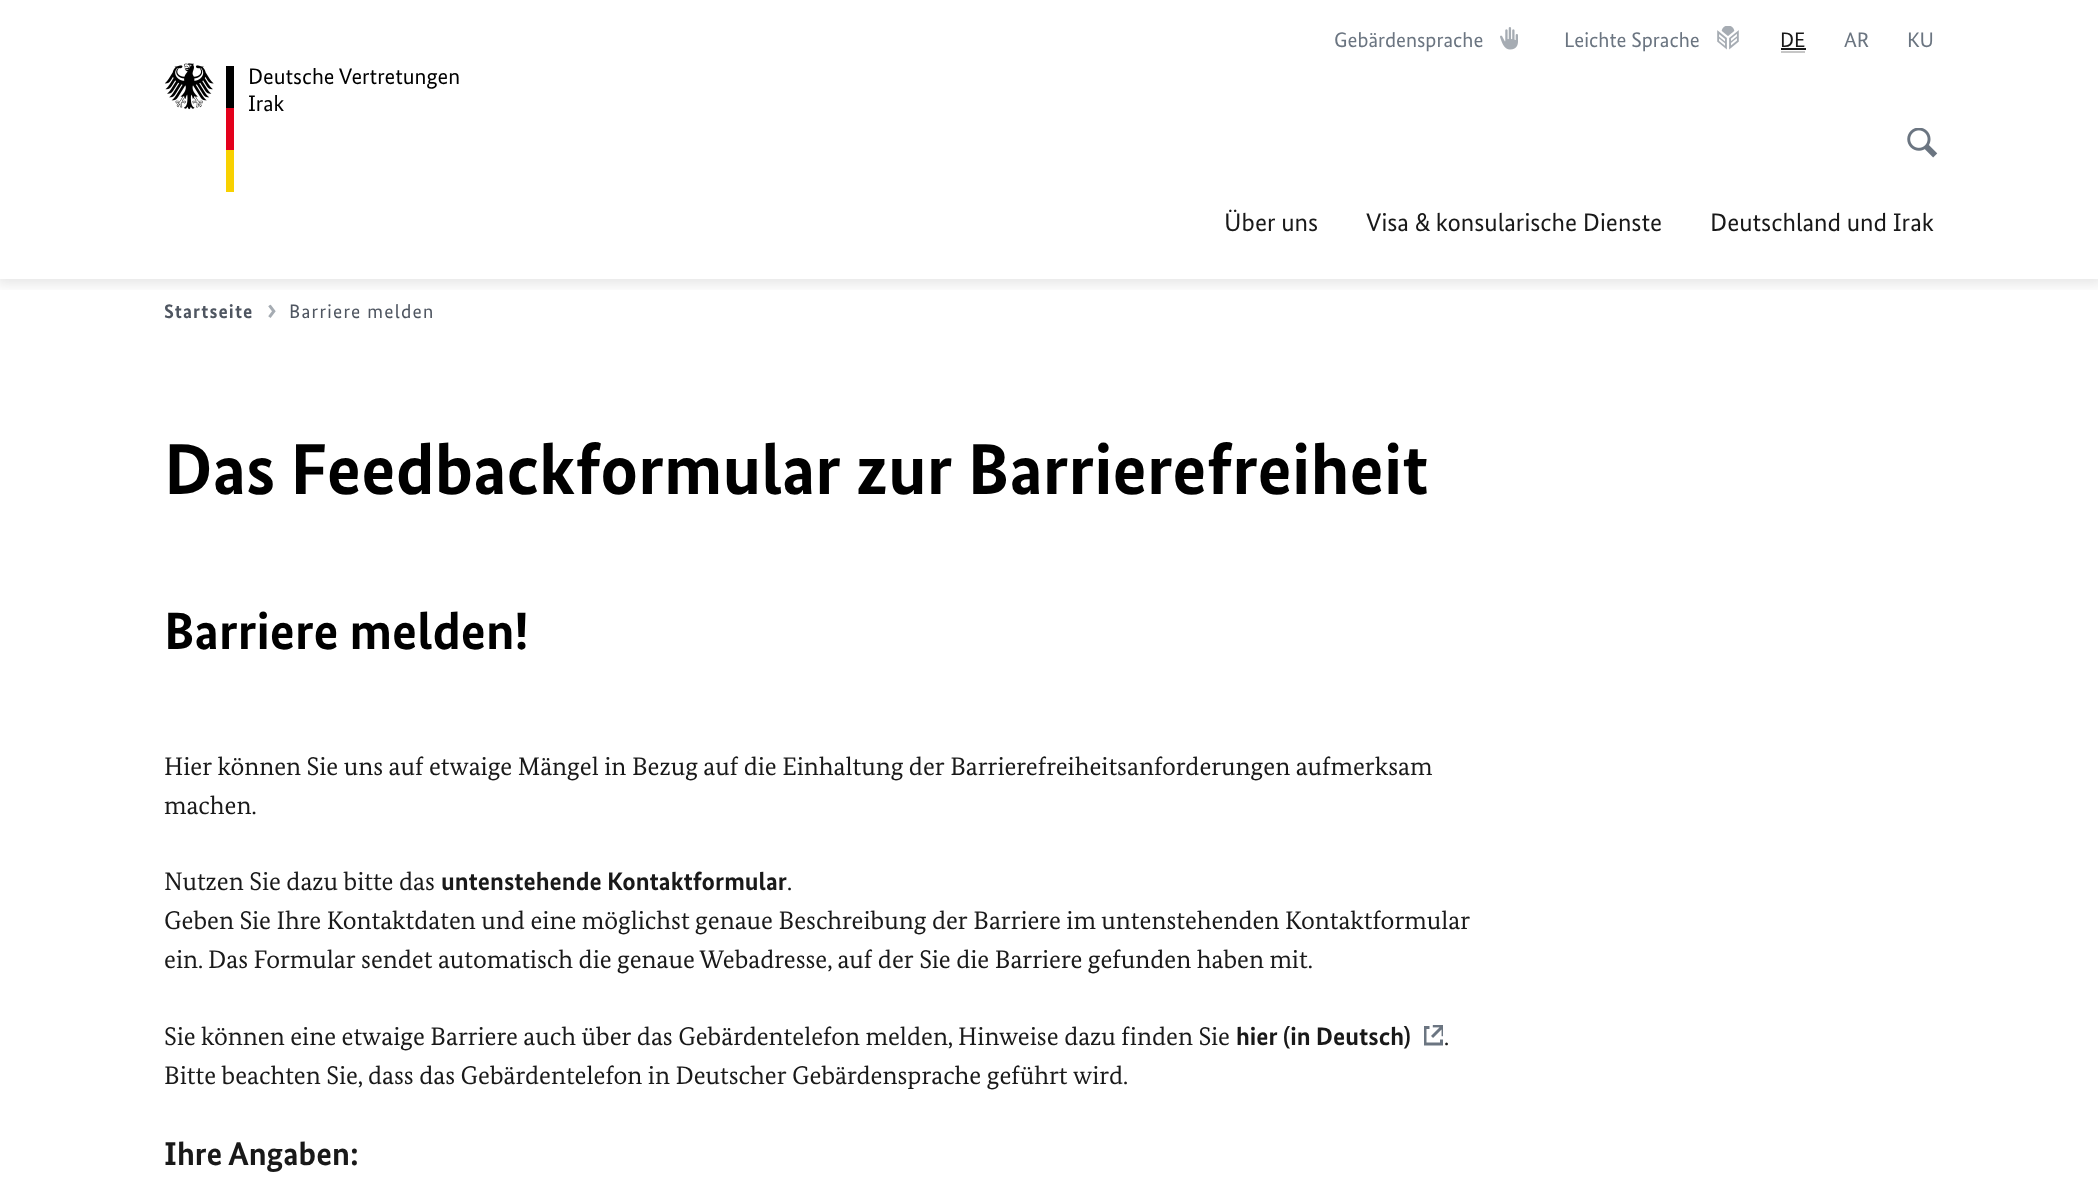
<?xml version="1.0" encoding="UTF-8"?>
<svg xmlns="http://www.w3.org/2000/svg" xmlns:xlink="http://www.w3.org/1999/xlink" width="2098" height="1191">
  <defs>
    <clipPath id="clip1"><rect x="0" y="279" width="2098" height="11" /></clipPath>
  </defs>
  <rect width="100%" height="100%" fill="#ffffff" />
  <g clip-path="url(#clip1)">
    <rect x="-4" y="-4" width="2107" height="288" fill="#000000" fill-opacity="0.1" filter="blur(7px)" />
  </g>
  <image x="165" y="63" width="69" height="129" xlink:href="image1.png" />
  <image x="1500" y="27" width="18" height="23" xlink:href="image2.png" />
  <image x="1717" y="26" width="22" height="24" xlink:href="image3.png" />
  <rect x="1781" y="48" width="25" height="2" fill="#191919" />
  <rect x="1781" y="51" width="24" height="2" fill="#c6c6c6" />
  <image x="1907" y="128" width="31" height="30" xlink:href="image4.png" />
  <image x="268" y="304" width="8" height="14" xlink:href="image5.png" />
  <image x="1424" y="1025" width="19" height="21" xlink:href="image6.png" />
  <text x="248" y="84" style="font-family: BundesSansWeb; font-size: 22.5px; fill: #000000">Deutsche Vertretungen</text>
  <text x="248" y="111" style="font-family: BundesSansWeb; font-size: 22.5px; fill: #000000">Irak</text>
  <text x="1334" y="47" style="font-family: BundesSansWeb; font-size: 21px; fill: #6b7581">Gebärdensprache</text>
  <text x="1564" y="47" style="font-family: BundesSansWeb; font-size: 21px; fill: #6b7581">Leichte Sprache</text>
  <text x="1780" y="47" style="font-family: BundesSansWeb; font-size: 21px; fill: #191919">DE</text>
  <text x="1844" y="47" style="font-family: BundesSansWeb; font-size: 21px; fill: #6b7581">AR</text>
  <text x="1907" y="47" style="font-family: BundesSansWeb; font-size: 21px; fill: #6b7581">KU</text>
  <text x="1224" y="231" style="font-family: BundesSansWeb; font-size: 25.5px; fill: #191919">Über uns</text>
  <text x="1366" y="231" style="font-family: BundesSansWeb; font-size: 25.5px; fill: #191919">Visa &amp; konsularische Dienste</text>
  <text x="1710" y="231" style="font-family: BundesSansWeb; font-size: 25.5px; fill: #191919">Deutschland und Irak</text>
  <text x="164" y="318" style="font-family: BundesSansWeb; font-size: 19.5px; font-weight: bold; letter-spacing: 1.1px; fill: #4f5661">Startseite</text>
  <text x="289" y="318" style="font-family: BundesSansWeb; font-size: 19.5px; letter-spacing: 1.25px; fill: #4f5661">Barriere melden</text>
  <text x="164" y="494" style="font-family: BundesSansWeb; font-size: 72px; font-weight: bold; fill: #000000">Das Feedbackformular zur Barrierefreiheit</text>
  <text x="164" y="649" style="font-family: BundesSansWeb; font-size: 52.5px; font-weight: bold; fill: #000000">Barriere melden!</text>
  <text x="164" y="775" style="font-family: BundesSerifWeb; font-size: 25.5px; fill: #191919">Hier können Sie uns auf etwaige Mängel in Bezug auf die Einhaltung der Barrierefreiheitsanforderungen aufmerksam</text>
  <text x="164" y="814" style="font-family: BundesSerifWeb; font-size: 25.5px; fill: #191919">machen.</text>
  <text x="164" y="890" style="font-family: BundesSerifWeb; font-size: 25.5px; fill: #191919">Nutzen Sie dazu bitte das</text>
  <text x="441" y="890" style="font-family: BundesSansWeb; font-size: 25.5px; font-weight: bold; fill: #191919">untenstehende Kontaktformular</text>
  <text x="787" y="890" style="font-family: BundesSerifWeb; font-size: 25.5px; fill: #191919">.</text>
  <text x="164" y="929" style="font-family: BundesSerifWeb; font-size: 25.5px; fill: #191919">Geben Sie Ihre Kontaktdaten und eine möglichst genaue Beschreibung der Barriere im untenstehenden Kontaktformular</text>
  <text x="164" y="968" style="font-family: BundesSerifWeb; font-size: 25.5px; fill: #191919">ein. Das Formular sendet automatisch die genaue Webadresse, auf der Sie die Barriere gefunden haben mit.</text>
  <text x="164" y="1045" style="font-family: BundesSerifWeb; font-size: 25.5px; fill: #191919">Sie können eine etwaige Barriere auch über das Gebärdentelefon melden, Hinweise dazu finden Sie</text>
  <text x="1236" y="1045" style="font-family: BundesSansWeb; font-size: 25.5px; font-weight: bold; fill: #191919">hier (in Deutsch)</text>
  <text x="1444" y="1045" style="font-family: BundesSerifWeb; font-size: 25.5px; fill: #191919">.</text>
  <text x="164" y="1084" style="font-family: BundesSerifWeb; font-size: 25.5px; fill: #191919">Bitte beachten Sie, dass das Gebärdentelefon in Deutscher Gebärdensprache geführt wird.</text>
  <text x="164" y="1165" style="font-family: BundesSansWeb; font-size: 33px; font-weight: bold; fill: #191919">Ihre Angaben:</text>
</svg>
